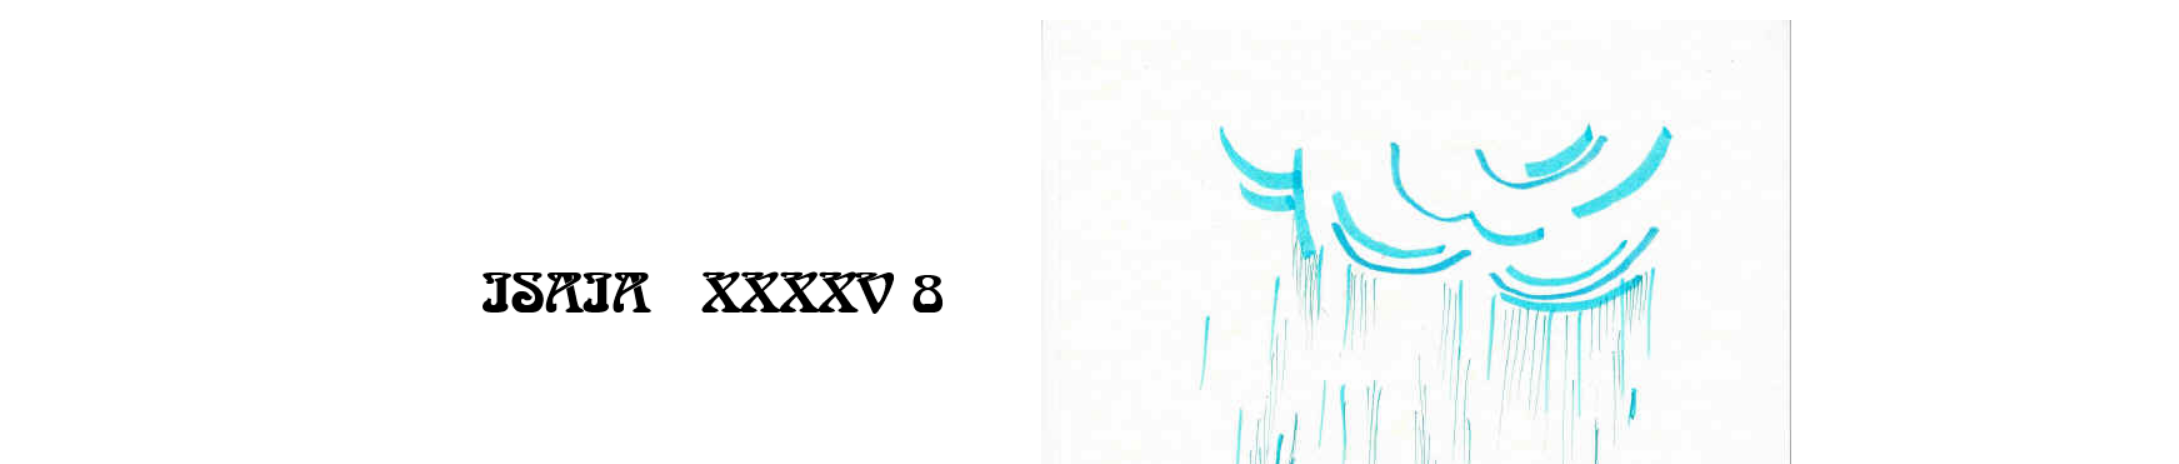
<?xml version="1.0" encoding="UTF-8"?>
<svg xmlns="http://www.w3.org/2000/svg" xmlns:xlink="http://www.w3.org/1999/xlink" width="2179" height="464">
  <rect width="100%" height="100%" fill="#ffffff" />
  <image x="482" y="271" width="462" height="43" xlink:href="image1.png" />
  <image x="1041" y="20" width="751" height="444" xlink:href="image2.png" />
</svg>
